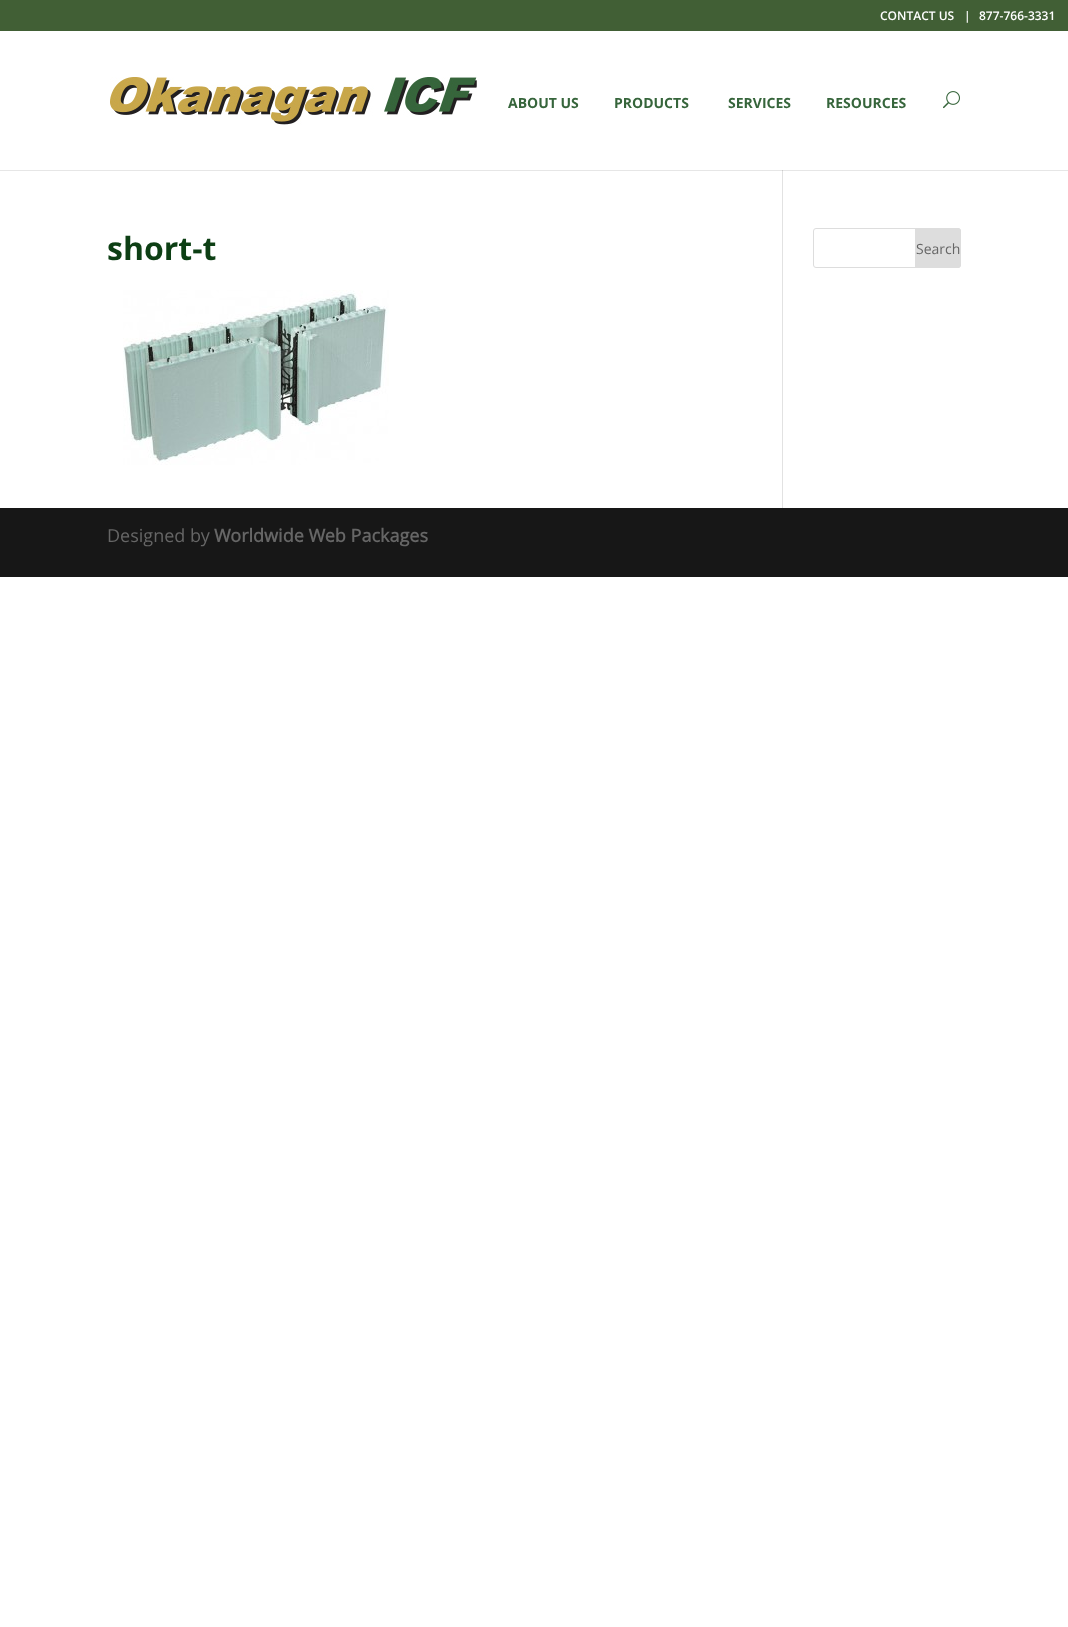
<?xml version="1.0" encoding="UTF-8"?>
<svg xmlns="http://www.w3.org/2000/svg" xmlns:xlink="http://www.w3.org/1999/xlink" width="1068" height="1627">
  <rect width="100%" height="100%" fill="#ffffff" />
  <rect y="170" width="1068" height="1" fill="#e6e6e6" />
  <rect width="1068" height="31" fill="#415f35" />
  <image x="110" y="77" width="367" height="48" xlink:href="image1.png" />
  <image x="943" y="91" width="17" height="18" xlink:href="image2.png" />
  <rect x="782" y="170" width="1" height="338" fill="#e2e2e2" />
  <rect x="782" y="170" width="1" height="1" fill="#cbcbcb" />
  <image x="123" y="290" width="266" height="175" xlink:href="image3.png" />
  <rect x="813.5" y="228.5" width="147" height="39" rx="2.5" fill="none" stroke="#dddddd" />
  <path d="M 915.5 228.5 h 42.5 c 1.5 0 2.5 1 2.5 2.5 v 34 c 0 1.5 -1 2.5 -2.5 2.5 h -42.5 z" fill="#dddddd" stroke="#dddddd" />
  <rect y="508" width="1068" height="69" fill="#171717" />
  <text x="880" y="20" style="font-family: Open Sans; font-size: 12px; font-weight: 600; fill: #ffffff">CONTACT US</text>
  <text x="964" y="20" style="font-family: Open Sans; font-size: 12px; font-weight: 600; fill: #ffffff">|</text>
  <text x="979" y="20" style="font-family: Open Sans; font-size: 12px; font-weight: 600; fill: #ffffff">877-766-3331</text>
  <text x="508" y="108" style="font-family: Open Sans; font-size: 14px; font-weight: bold; fill: #36653b">ABOUT US</text>
  <text x="614" y="108" style="font-family: Open Sans; font-size: 14px; font-weight: bold; fill: #36653b">PRODUCTS</text>
  <text x="728" y="108" style="font-family: Open Sans; font-size: 14px; font-weight: bold; fill: #36653b">SERVICES</text>
  <text x="826" y="108" style="font-family: Open Sans; font-size: 14px; font-weight: bold; fill: #36653b">RESOURCES</text>
  <text x="107" y="260" style="font-family: Open Sans; font-size: 32px; font-weight: bold; fill: #0d3f14">short-t</text>
  <text x="916" y="254" style="font-family: Open Sans; font-size: 14px; fill: #666666">Search</text>
  <text x="107" y="542" style="font-family: 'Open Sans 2'; font-size: 18px; fill: #666666">Designed by</text>
  <text x="214" y="542" style="font-family: 'Open Sans 2'; font-size: 18px; font-weight: bold; fill: #666666">Worldwide Web Packages</text>
</svg>
